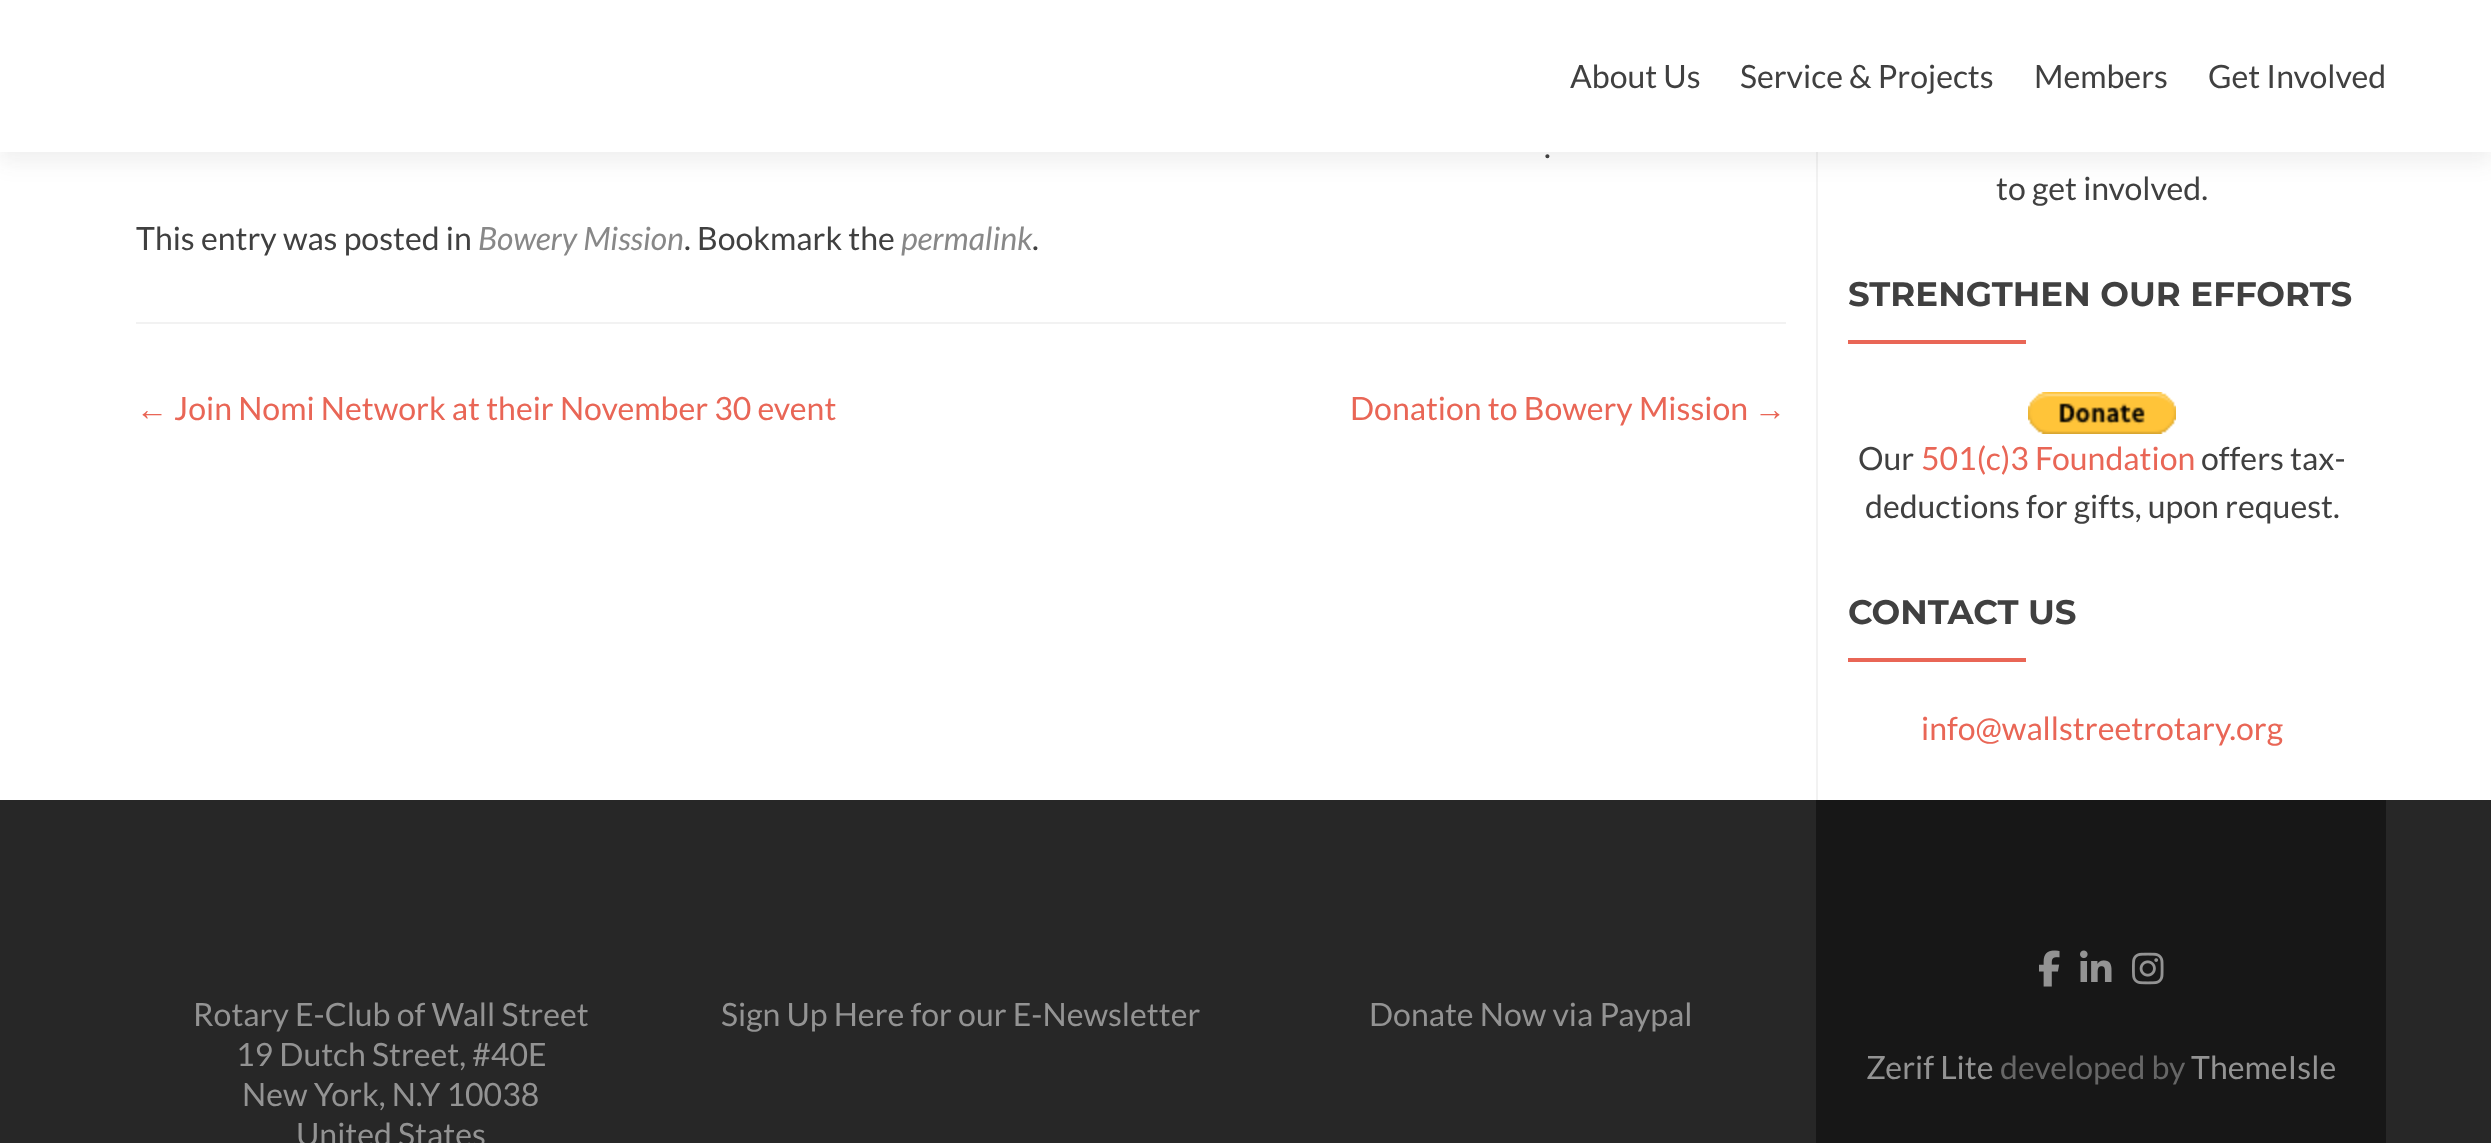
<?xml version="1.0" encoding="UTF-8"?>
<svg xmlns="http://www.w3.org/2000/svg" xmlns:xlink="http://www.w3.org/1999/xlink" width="2491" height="1143">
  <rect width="100%" height="100%" fill="#ffffff" />
  <rect x="1816" y="152" width="2" height="648" fill="#f2f2f2" />
  <rect y="10" width="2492" height="152" fill="#323232" fill-opacity="0.08" filter="blur(11px)" />
  <rect width="2491" height="152" fill="#ffffff" />
  <rect x="136" y="322" width="1650" height="2" fill="#f2f2f2" />
  <rect x="1848" y="340" width="178" height="4" fill="#e96656" />
  <image x="2028" y="392" width="148" height="42" xlink:href="image1.png" />
  <rect x="1848" y="658" width="178" height="4" fill="#e96656" />
  <rect y="800" width="2491" height="343" fill="#272727" />
  <rect x="1816" y="800" width="570" height="343" fill="#171717" />
  <image x="2039" y="950" width="21" height="37" xlink:href="image2.png" />
  <image x="2080" y="950" width="32" height="32" xlink:href="image3.png" />
  <image x="2132" y="952" width="32" height="33" xlink:href="image4.png" />
  <text x="1570" y="88" style="font-family: Lato; font-size: 32px; fill: #404040">About Us</text>
  <text x="1740" y="88" style="font-family: Lato; font-size: 32px; fill: #404040">Service &amp; Projects</text>
  <text x="2034" y="88" style="font-family: Lato; font-size: 32px; fill: #404040">Members</text>
  <text x="2208" y="88" style="font-family: Lato; font-size: 32px; fill: #404040">Get Involved</text>
  <text x="1544" y="158" style="font-family: Lato; font-size: 32px; fill: #404040">.</text>
  <text x="136" y="250" style="font-family: Lato; font-size: 32px; fill: #404040">This entry was posted in</text>
  <text x="478" y="250" style="font-family: Lato; font-size: 32px; font-style: italic; fill: #888888">Bowery Mission</text>
  <text x="684" y="250" style="font-family: Lato; font-size: 32px; fill: #404040">. Bookmark the</text>
  <text x="901" y="250" style="font-family: Lato; font-size: 32px; font-style: italic; fill: #888888">permalink</text>
  <text x="1032" y="250" style="font-family: Lato; font-size: 32px; fill: #404040">.</text>
  <text x="136" y="420" style="font-family: Liberation Sans; font-size: 32px; fill: #e96656">←</text>
  <text x="174" y="420" style="font-family: Lato; font-size: 32px; fill: #e96656">Join Nomi Network at their November 30 event</text>
  <text x="1350" y="420" style="font-family: Lato; font-size: 32px; fill: #e96656">Donation to Bowery Mission</text>
  <text x="1754" y="420" style="font-family: Liberation Sans; font-size: 32px; fill: #e96656">→</text>
  <text x="1996" y="200" style="font-family: Lato; font-size: 32px; fill: #404040">to get involved.</text>
  <text x="1848" y="306" style="font-family: Montserrat; font-size: 34px; font-weight: bold; fill: #404040">STRENGTHEN OUR EFFORTS</text>
  <text x="1858" y="470" style="font-family: Lato; font-size: 32px; fill: #404040">Our</text>
  <text x="1921" y="470" style="font-family: Lato; font-size: 32px; fill: #e96656">501(c)3 Foundation</text>
  <text x="2201" y="470" style="font-family: Lato; font-size: 32px; fill: #404040">offers tax-</text>
  <text x="1865" y="518" style="font-family: Lato; font-size: 32px; fill: #404040">deductions for gifts, upon request.</text>
  <text x="1848" y="624" style="font-family: Montserrat; font-size: 34px; font-weight: bold; fill: #404040">CONTACT US</text>
  <text x="1921" y="740" style="font-family: Lato; font-size: 32px; fill: #e96656">info@wallstreetrotary.org</text>
  <text x="193" y="1026" style="font-family: Lato; font-size: 32px; fill: #939393">Rotary E-Club of Wall Street</text>
  <text x="236" y="1066" style="font-family: Lato; font-size: 32px; fill: #939393">19 Dutch Street, #40E</text>
  <text x="242" y="1106" style="font-family: Lato; font-size: 32px; fill: #939393">New York, N.Y 10038</text>
  <text x="296" y="1146" style="font-family: Lato; font-size: 32px; fill: #939393">United States</text>
  <text x="721" y="1026" style="font-family: Lato; font-size: 32px; fill: #939393">Sign Up Here for our E-Newsletter</text>
  <text x="1369" y="1026" style="font-family: Lato; font-size: 32px; fill: #939393">Donate Now via Paypal</text>
  <text x="1866" y="1079" style="font-family: Lato; font-size: 32px; fill: #939393">Zerif Lite</text>
  <text x="2000" y="1079" style="font-family: Lato; font-size: 32px; fill: #666666">developed by</text>
  <text x="2191" y="1079" style="font-family: Lato; font-size: 32px; fill: #939393">ThemeIsle</text>
</svg>
